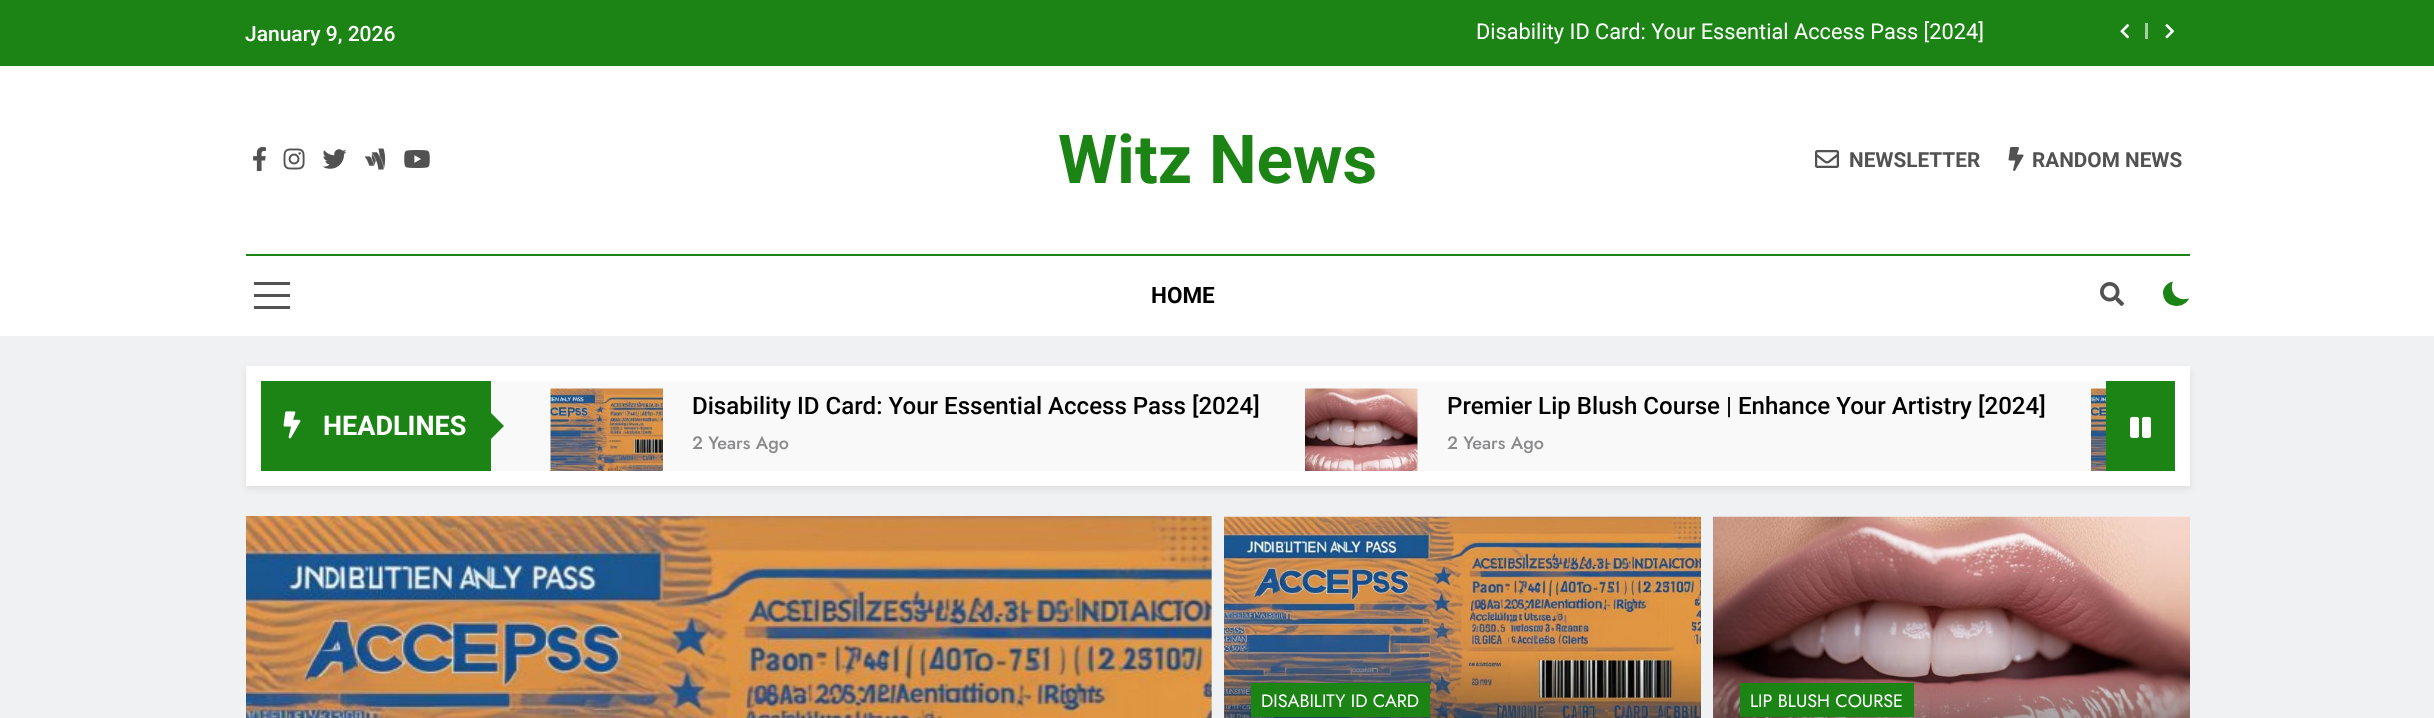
<?xml version="1.0" encoding="UTF-8"?>
<svg xmlns="http://www.w3.org/2000/svg" xmlns:xlink="http://www.w3.org/1999/xlink" width="2434" height="718">
  <rect width="100%" height="100%" fill="#f0f1f2" />
  <rect width="2434" height="66" fill="#1b8415" />
  <image x="2120" y="24" width="10" height="15" xlink:href="image1.png" />
  <rect x="2145" y="23" width="3" height="16" fill="#a4cea1" />
  <image x="2165" y="24" width="10" height="15" xlink:href="image2.png" />
  <rect y="66" width="2434" height="270" fill="#ffffff" />
  <image x="253" y="147" width="13" height="24" xlink:href="image3.png" />
  <image x="283" y="148" width="22" height="22" xlink:href="image4.png" />
  <image x="322" y="149" width="25" height="20" xlink:href="image5.png" />
  <image x="364" y="148" width="22" height="22" xlink:href="image6.png" />
  <image x="404" y="150" width="26" height="18" xlink:href="image7.png" />
  <image x="1815" y="150" width="24" height="18" xlink:href="image8.png" />
  <image x="2008" y="147" width="16" height="24" xlink:href="image9.png" />
  <rect x="246" y="254" width="1944" height="2" fill="#1b8415" />
  <rect x="254" y="282" width="36" height="3" fill="#525252" />
  <rect x="254" y="294" width="36" height="3" fill="#525252" />
  <rect x="254" y="306" width="36" height="3" fill="#525252" />
  <image x="2100" y="282" width="24" height="24" xlink:href="image10.png" />
  <path d="M 2189 298.5 l -3 0.5 c -12 1.5 -16.5 -10 -13 -17.5 c -3.5 0.5 -6.5 3 -8.5 6 c -1.5 2.5 -2 5.5 -1 8.5 c 2 12 20.5 13.5 25.5 2.5 z" fill="#1b8415" />
  <rect x="246" y="369" width="1944" height="120" fill="#000000" fill-opacity="0.08" filter="blur(3px)" />
  <rect x="246" y="366" width="1944" height="120" fill="#ffffff" />
  <rect x="261" y="381" width="230" height="90" fill="#1b8415" />
  <image x="283" y="411" width="18" height="28" xlink:href="image11.png" />
  <rect x="491" y="381" width="1615" height="90" fill="#f9f9f9" />
  <path d="M 489 441 v -30 l 15 15 z" fill="#1b8415" />
  <image x="550" y="388" width="113" height="83" xlink:href="image12.png" />
  <image x="1305" y="388" width="113" height="83" xlink:href="image13.png" />
  <image x="2091" y="388" width="15" height="83" xlink:href="image14.png" />
  <rect x="2106" y="381" width="69" height="90" fill="#1b8415" />
  <image x="2130" y="416" width="21" height="22" xlink:href="image15.png" />
  <image x="246" y="516" width="966" height="202" xlink:href="image16.png" />
  <image x="1224" y="516" width="477" height="202" xlink:href="image17.png" />
  <rect x="1251" y="683" width="179" height="34" fill="#1b8415" />
  <image x="1713" y="516" width="477" height="202" xlink:href="image18.png" />
  <rect x="1740" y="683" width="174" height="34" fill="#1b8415" />
  <text x="245" y="41" style="font-family: Roboto; font-size: 21px; font-weight: 500; fill: #ffffff">January 9, 2026</text>
  <text x="1476" y="39" style="font-family: Roboto; font-size: 21.75px; fill: #ffffff">Disability ID Card: Your Essential Access Pass [2024]</text>
  <text x="1058" y="183" style="font-family: Roboto; font-size: 67.5px; font-weight: bold; fill: #1b8415">Witz News</text>
  <text x="1849" y="167" style="font-family: Roboto; font-size: 20.75px; font-weight: bold; fill: #525252">NEWSLETTER</text>
  <text x="2032" y="167" style="font-family: Roboto; font-size: 20.75px; font-weight: bold; fill: #525252">RANDOM NEWS</text>
  <text x="1151" y="303" style="font-family: Roboto; font-size: 22.5px; font-weight: bold; fill: #000000">HOME</text>
  <text x="323" y="435" style="font-family: Roboto; font-size: 27px; font-weight: bold; fill: #ffffff">HEADLINES</text>
  <text x="692" y="414" style="font-family: Roboto; font-size: 24.1px; font-weight: 500; fill: #000000">Disability ID Card: Your Essential Access Pass [2024]</text>
  <text x="692" y="449" style="font-family: Jost; font-size: 18px; font-weight: 500; fill: #8a8a8c">2 Years Ago</text>
  <text x="1447" y="414" style="font-family: Roboto; font-size: 24.1px; font-weight: 500; fill: #000000">Premier Lip Blush Course | Enhance Your Artistry [2024]</text>
  <text x="1447" y="449" style="font-family: Jost; font-size: 18px; font-weight: 500; fill: #8a8a8c">2 Years Ago</text>
  <text x="1261" y="707" style="font-family: Jost; font-size: 18px; fill: #ffffff">DISABILITY ID CARD</text>
  <text x="1750" y="707" style="font-family: Jost; font-size: 18px; fill: #ffffff">LIP BLUSH COURSE</text>
</svg>
